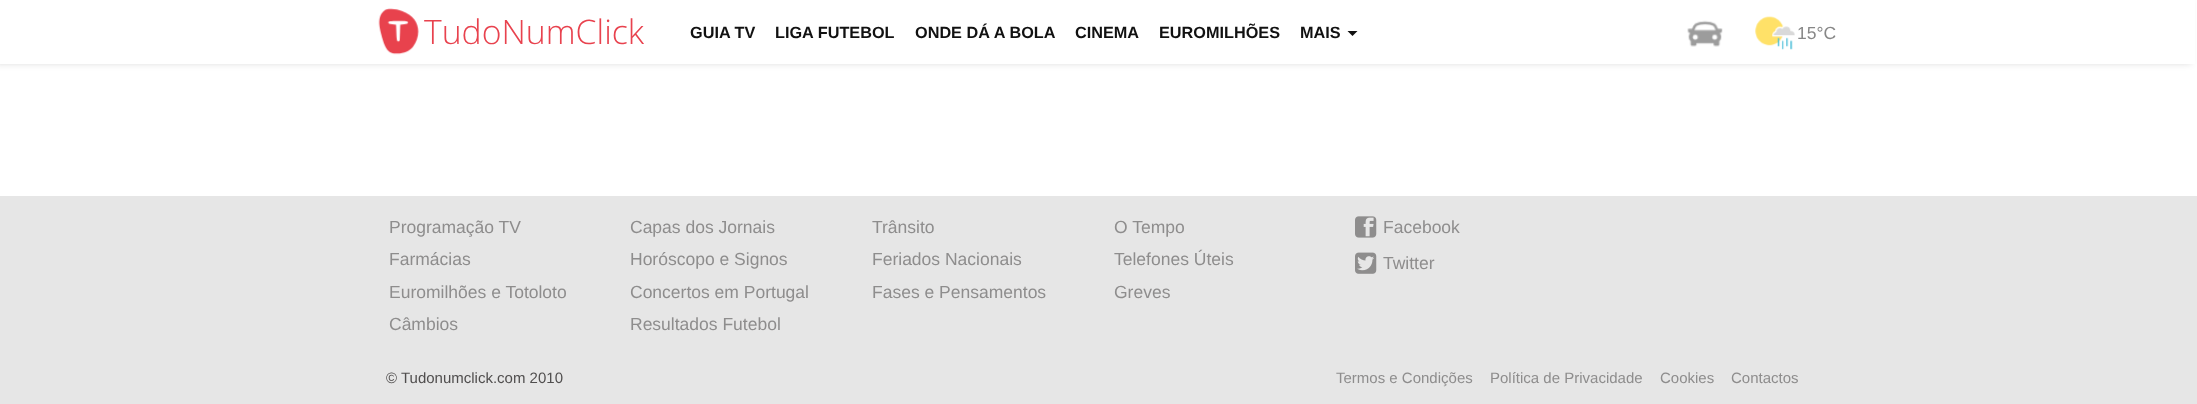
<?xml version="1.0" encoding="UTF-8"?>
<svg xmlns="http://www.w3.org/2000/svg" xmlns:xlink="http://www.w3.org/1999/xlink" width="2197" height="404">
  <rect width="100%" height="100%" fill="#ffffff" />
  <rect x="-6" width="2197" height="64" fill="#000000" fill-opacity="0.13" filter="blur(3px)" />
  <rect width="2195" height="64" fill="#ffffff" />
  <image x="378" y="8" width="41" height="47" xlink:href="image1.png" />
  <path d="M 1347.5 31 h 10 l -5 5 z" fill="#111111" />
  <image x="1687" y="20" width="36" height="27" xlink:href="image2.png" />
  <image x="1755" y="16" width="40" height="34" xlink:href="image3.png" />
  <rect y="196" width="2197" height="208" fill="#e6e6e6" />
  <image x="1355" y="216" width="22" height="22" xlink:href="image4.png" />
  <image x="1355" y="252" width="22" height="22" xlink:href="image5.png" />
  <text x="424" y="44" style="font-family: Open Sans; font-size: 33.75px; font-weight: 300; fill: #e8424e">TudoNumClick</text>
  <text x="690" y="38" style="font-family: Liberation Sans; font-size: 16.25px; font-weight: bold; fill: #111111">GUIA TV</text>
  <text x="775" y="38" style="font-family: Liberation Sans; font-size: 16.25px; font-weight: bold; fill: #111111">LIGA FUTEBOL</text>
  <text x="915" y="38" style="font-family: Liberation Sans; font-size: 16.25px; font-weight: bold; fill: #111111">ONDE DÁ A BOLA</text>
  <text x="1075" y="38" style="font-family: Liberation Sans; font-size: 16.25px; font-weight: bold; fill: #111111">CINEMA</text>
  <text x="1159" y="38" style="font-family: Liberation Sans; font-size: 16.25px; font-weight: bold; fill: #111111">EUROMILHÕES</text>
  <text x="1300" y="38" style="font-family: Liberation Sans; font-size: 16.25px; font-weight: bold; fill: #111111">MAIS</text>
  <text x="1797" y="39" style="font-family: Liberation Sans; font-size: 17.5px; fill: #878787">15°C</text>
  <text x="389" y="233" style="font-family: Liberation Sans; font-size: 17.5px; fill: #8e8d8d">Programação TV</text>
  <text x="389" y="265" style="font-family: Liberation Sans; font-size: 17.5px; fill: #8e8d8d">Farmácias</text>
  <text x="389" y="298" style="font-family: Liberation Sans; font-size: 17.5px; fill: #8e8d8d">Euromilhões e Totoloto</text>
  <text x="389" y="330" style="font-family: Liberation Sans; font-size: 17.5px; fill: #8e8d8d">Câmbios</text>
  <text x="630" y="233" style="font-family: Liberation Sans; font-size: 17.5px; fill: #8e8d8d">Capas dos Jornais</text>
  <text x="630" y="265" style="font-family: Liberation Sans; font-size: 17.5px; fill: #8e8d8d">Horóscopo e Signos</text>
  <text x="630" y="298" style="font-family: Liberation Sans; font-size: 17.5px; fill: #8e8d8d">Concertos em Portugal</text>
  <text x="630" y="330" style="font-family: Liberation Sans; font-size: 17.5px; fill: #8e8d8d">Resultados Futebol</text>
  <text x="872" y="233" style="font-family: Liberation Sans; font-size: 17.5px; fill: #8e8d8d">Trânsito</text>
  <text x="872" y="265" style="font-family: Liberation Sans; font-size: 17.5px; fill: #8e8d8d">Feriados Nacionais</text>
  <text x="872" y="298" style="font-family: Liberation Sans; font-size: 17.5px; fill: #8e8d8d">Fases e Pensamentos</text>
  <text x="1114" y="233" style="font-family: Liberation Sans; font-size: 17.5px; fill: #8e8d8d">O Tempo</text>
  <text x="1114" y="265" style="font-family: Liberation Sans; font-size: 17.5px; fill: #8e8d8d">Telefones Úteis</text>
  <text x="1114" y="298" style="font-family: Liberation Sans; font-size: 17.5px; fill: #8e8d8d">Greves</text>
  <text x="1383" y="233" style="font-family: Liberation Sans; font-size: 17.5px; fill: #8e8d8d">Facebook</text>
  <text x="1383" y="269" style="font-family: Liberation Sans; font-size: 17.5px; fill: #8e8d8d">Twitter</text>
  <text x="386" y="383" style="font-family: Liberation Sans; font-size: 15px; fill: #504e4e">© Tudonumclick.com 2010</text>
  <text x="1336" y="383" style="font-family: Liberation Sans; font-size: 15px; fill: #8e8d8d">Termos e Condições</text>
  <text x="1490" y="383" style="font-family: Liberation Sans; font-size: 15px; fill: #8e8d8d">Política de Privacidade</text>
  <text x="1660" y="383" style="font-family: Liberation Sans; font-size: 15px; fill: #8e8d8d">Cookies</text>
  <text x="1731" y="383" style="font-family: Liberation Sans; font-size: 15px; fill: #8e8d8d">Contactos</text>
</svg>
